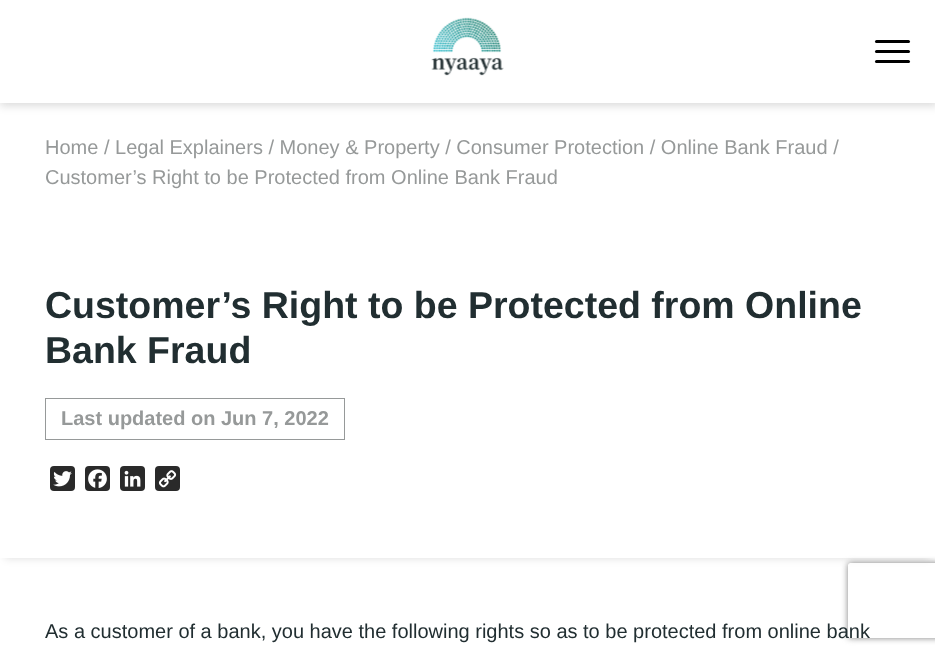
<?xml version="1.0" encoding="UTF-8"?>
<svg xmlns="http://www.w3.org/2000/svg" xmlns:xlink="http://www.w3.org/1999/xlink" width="935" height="654">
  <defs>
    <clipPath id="clip1"><path d="M 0 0 h 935 v 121 h -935 z m 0 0 h 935 v 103 h -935 z" clip-rule="evenodd" /></clipPath>
    <clipPath id="clip2"><path d="M 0 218 h 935 v 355 h -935 z m 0 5 h 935 v 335 h -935 z" clip-rule="evenodd" /></clipPath>
    <clipPath id="clip3"><path d="M 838 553 h 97 v 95 h -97 z m 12.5 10 h 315 c 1.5 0 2.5 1 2.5 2.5 v 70 c 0 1.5 -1 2.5 -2.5 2.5 h -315 c -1.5 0 -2.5 -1 -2.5 -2.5 v -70 c 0 -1.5 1 -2.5 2.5 -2.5 z" clip-rule="evenodd" /></clipPath>
  </defs>
  <rect width="100%" height="100%" fill="#ffffff" />
  <g clip-path="url(#clip1)">
    <rect y="1" width="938" height="105" fill="#000000" fill-opacity="0.14" filter="blur(4.5px)" />
  </g>
  <image x="431" y="17" width="73" height="59" xlink:href="image1.png" />
  <rect x="875" y="60" width="35" height="3" rx="1.5" fill="#000000" />
  <rect x="875" y="40" width="35" height="3" rx="1.5" fill="#000000" />
  <rect x="875" y="50" width="35" height="3" rx="1.5" fill="#000000" />
  <g clip-path="url(#clip2)">
    <rect x="5" y="233" width="925" height="325" fill="#000000" fill-opacity="0.14" filter="blur(4.5px)" />
  </g>
  <rect x="45.5" y="398.5" width="299" height="41" fill="none" stroke="#969999" />
  <rect x="50" y="466" width="25" height="25" rx="4" fill="#2a2a2a" />
  <image x="53" y="471" width="19" height="16" xlink:href="image2.png" />
  <rect x="85" y="466" width="25" height="25" rx="4" fill="#2a2a2a" />
  <image x="88" y="469" width="19" height="19" xlink:href="image3.png" />
  <rect x="120" y="466" width="25" height="25" rx="4" fill="#2a2a2a" />
  <image x="124" y="470" width="17" height="17" xlink:href="image4.png" />
  <rect x="155" y="466" width="25" height="25" rx="4" fill="#2a2a2a" />
  <image x="158" y="470" width="19" height="18" xlink:href="image5.png" />
  <g clip-path="url(#clip3)">
    <rect x="848" y="563" width="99" height="75" rx="2.5" fill="#808080" filter="blur(3px)" />
  </g>
  <text x="45" y="154" style="font-family: Liberation Sans; font-size: 20px; fill: #969999">Home / Legal Explainers / Money &amp; Property / Consumer Protection / Online Bank Fraud /</text>
  <text x="45" y="184" style="font-family: Liberation Sans; font-size: 20px; fill: #969999">Customer’s Right to be Protected from Online Bank Fraud</text>
  <text x="45" y="318" style="font-family: Liberation Sans; font-size: 37.5px; font-weight: bold; fill: #212e31">Customer’s Right to be Protected from Online</text>
  <text x="45" y="363" style="font-family: Liberation Sans; font-size: 37.5px; font-weight: bold; fill: #212e31">Bank Fraud</text>
  <text x="61" y="425" style="font-family: Liberation Sans; font-size: 20px; font-weight: bold; fill: #969999">Last updated on Jun 7, 2022</text>
  <text x="45" y="638" style="font-family: Liberation Sans; font-size: 20px; fill: #212e31">As a customer of a bank, you have the following rights so as to be protected from online bank</text>
</svg>
